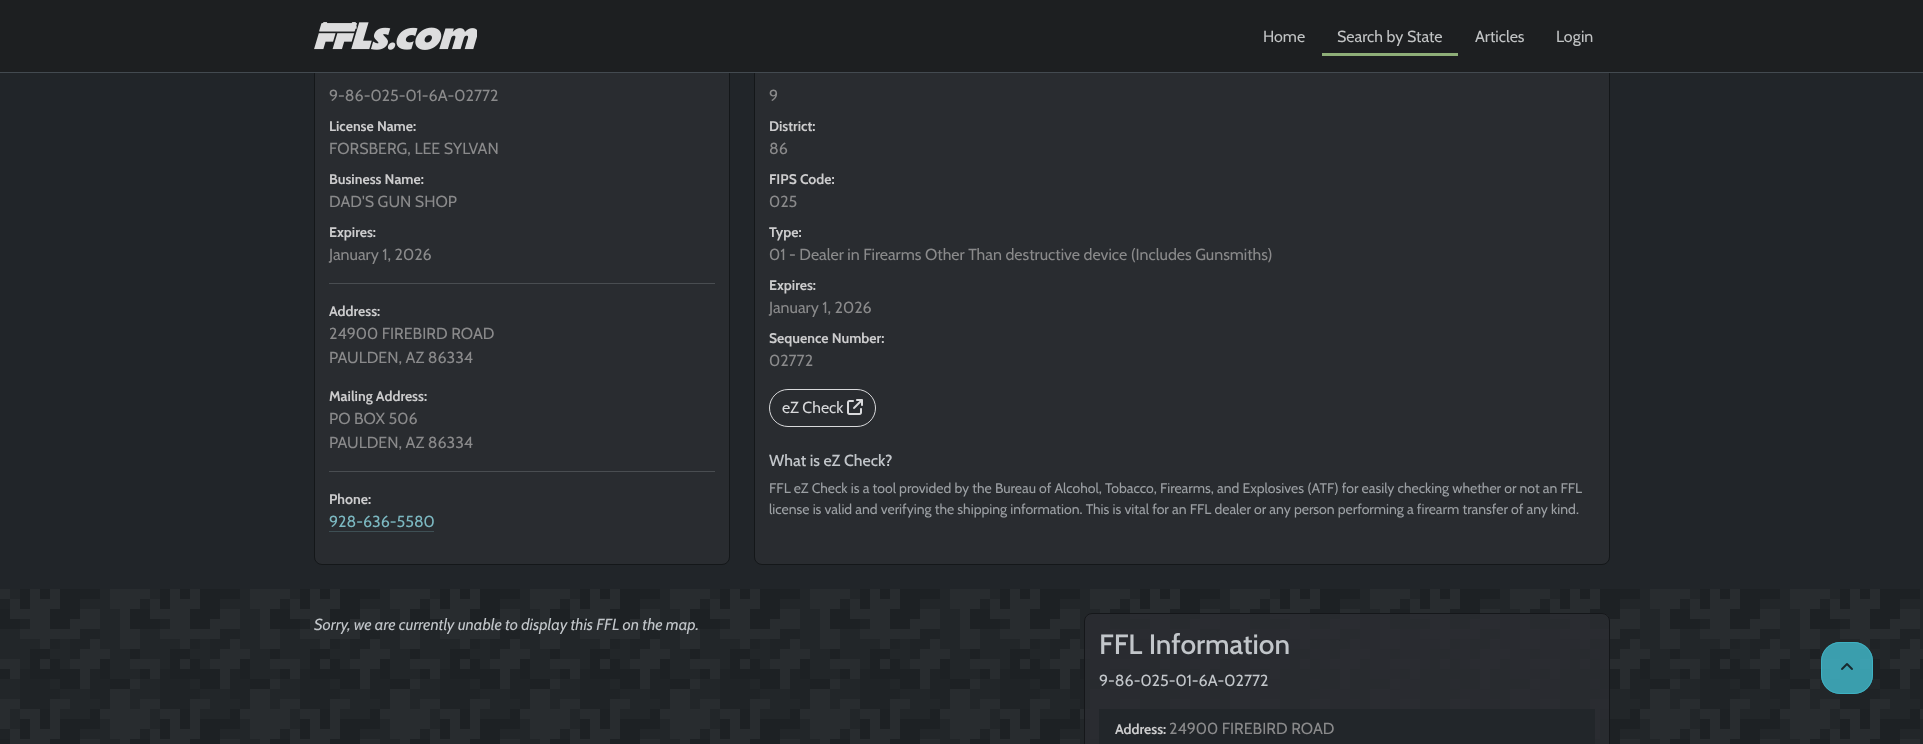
<?xml version="1.0" encoding="UTF-8"?>
<svg xmlns="http://www.w3.org/2000/svg" xmlns:xlink="http://www.w3.org/1999/xlink" width="1923" height="744">
  <rect width="100%" height="100%" fill="#212529" />
  <rect x="314.5" y="6.5" width="415" height="558" rx="7.5" fill="#292c30" stroke="#141719" />
  <rect x="754.5" y="6.5" width="855" height="558" rx="7.5" fill="#292c30" stroke="#141719" />
  <rect width="1923" height="72" fill="#1d1f21" />
  <rect y="72" width="1923" height="1" fill="#434a50" />
  <image x="314" y="22" width="163" height="28" xlink:href="image1.png" />
  <rect x="1322" y="53" width="136" height="3" fill="#8eae78" />
  <rect x="329" y="283" width="386" height="1" fill="#494d51" />
  <rect x="329" y="471" width="386" height="1" fill="#494d51" />
  <rect x="329" y="531" width="105" height="1" fill="#3e4f54" />
  <rect x="769.5" y="389.5" width="106" height="37" rx="18.5" fill="none" stroke="#d8d9db" />
  <image x="847" y="399" width="16" height="16" xlink:href="image2.png" />
  <image x="0" y="589" width="1923" height="155" xlink:href="image3.png" />
  <rect x="1084" y="613" width="526" height="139" rx="8" fill="#2a2d31" fill-opacity="0.85" />
  <rect x="1084.5" y="613.5" width="525" height="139" rx="7.5" fill="none" stroke="#121416" stroke-opacity="0.85" />
  <rect x="1099" y="709" width="496" height="35" fill="#22262a" />
  <rect x="1821" y="642" width="52" height="52" rx="19" fill="#40b4c5" fill-opacity="0.85" />
  <rect x="1821.5" y="642.5" width="51" height="51" rx="18.5" fill="none" stroke="#40b4c5" stroke-opacity="0.85" />
  <image x="1841" y="663" width="12" height="7" xlink:href="image4.png" />
  <text x="1263" y="42" style="font-family: Cabin; font-size: 16px; fill: #c1c3c4">Home</text>
  <text x="1337" y="42" style="font-family: Cabin; font-size: 16px; fill: #c1c3c4">Search by State</text>
  <text x="1475" y="42" style="font-family: Cabin; font-size: 16px; fill: #c1c3c4">Articles</text>
  <text x="1556" y="42" style="font-family: Cabin; font-size: 16px; fill: #c1c3c4">Login</text>
  <text x="329" y="101" style="font-family: Cabin; font-size: 16px; fill: #8a8a8b">9-86-025-01-6A-02772</text>
  <text x="329" y="131" style="font-family: Cabin; font-size: 14px; font-weight: bold; fill: #cccccd">License Name:</text>
  <text x="329" y="154" style="font-family: Cabin; font-size: 16px; fill: #8a8a8b">FORSBERG, LEE SYLVAN</text>
  <text x="329" y="184" style="font-family: Cabin; font-size: 14px; font-weight: bold; fill: #cccccd">Business Name:</text>
  <text x="329" y="207" style="font-family: Cabin; font-size: 16px; fill: #8a8a8b">DAD'S GUN SHOP</text>
  <text x="329" y="237" style="font-family: Cabin; font-size: 14px; font-weight: bold; fill: #cccccd">Expires:</text>
  <text x="329" y="260" style="font-family: Cabin; font-size: 16px; fill: #8a8a8b">January 1, 2026</text>
  <text x="329" y="316" style="font-family: Cabin; font-size: 14px; font-weight: bold; fill: #cccccd">Address:</text>
  <text x="329" y="339" style="font-family: Cabin; font-size: 16px; fill: #8a8a8b">24900 FIREBIRD ROAD</text>
  <text x="329" y="363" style="font-family: Cabin; font-size: 16px; fill: #8a8a8b">PAULDEN, AZ 86334</text>
  <text x="329" y="401" style="font-family: Cabin; font-size: 14px; font-weight: bold; fill: #cccccd">Mailing Address:</text>
  <text x="329" y="424" style="font-family: Cabin; font-size: 16px; fill: #8a8a8b">PO BOX 506</text>
  <text x="329" y="448" style="font-family: Cabin; font-size: 16px; fill: #8a8a8b">PAULDEN, AZ 86334</text>
  <text x="329" y="504" style="font-family: Cabin; font-size: 14px; font-weight: bold; fill: #cccccd">Phone:</text>
  <text x="329" y="527" style="font-family: Cabin; font-size: 16px; fill: #7cb8c1">928-636-5580</text>
  <text x="769" y="101" style="font-family: Cabin; font-size: 16px; fill: #8a8a8b">9</text>
  <text x="769" y="131" style="font-family: Cabin; font-size: 14px; font-weight: bold; fill: #cccccd">District:</text>
  <text x="769" y="154" style="font-family: Cabin; font-size: 16px; fill: #8a8a8b">86</text>
  <text x="769" y="184" style="font-family: Cabin; font-size: 14px; font-weight: bold; fill: #cccccd">FIPS Code:</text>
  <text x="769" y="207" style="font-family: Cabin; font-size: 16px; fill: #8a8a8b">025</text>
  <text x="769" y="237" style="font-family: Cabin; font-size: 14px; font-weight: bold; fill: #cccccd">Type:</text>
  <text x="769" y="260" style="font-family: Cabin; font-size: 16px; fill: #8a8a8b">01 - Dealer in Firearms Other Than destructive device (Includes Gunsmiths)</text>
  <text x="769" y="290" style="font-family: Cabin; font-size: 14px; font-weight: bold; fill: #cccccd">Expires:</text>
  <text x="769" y="313" style="font-family: Cabin; font-size: 16px; fill: #8a8a8b">January 1, 2026</text>
  <text x="769" y="343" style="font-family: Cabin; font-size: 14px; font-weight: bold; fill: #cccccd">Sequence Number:</text>
  <text x="769" y="366" style="font-family: Cabin; font-size: 16px; fill: #8a8a8b">02772</text>
  <text x="782" y="413" style="font-family: Cabin; font-size: 16px; fill: #d8d9db">eZ Check</text>
  <text x="769" y="466" style="font-family: Cabin; font-size: 16px; font-weight: 500; fill: #c2c6ca">What is eZ Check?</text>
  <text x="769" y="493" style="font-family: Cabin; font-size: 14px; fill: #9ca0a4">FFL eZ Check is a tool provided by the Bureau of Alcohol, Tobacco, Firearms, and Explosives (ATF) for easily checking whether or not an FFL</text>
  <text x="769" y="514" style="font-family: Cabin; font-size: 14px; fill: #9ca0a4">license is valid and verifying the shipping information. This is vital for an FFL dealer or any person performing a firearm transfer of any kind.</text>
  <text x="314" y="630" style="font-family: Cabin; font-size: 16px; font-style: italic; fill: #c2c6ca">Sorry, we are currently unable to display this FFL on the map.</text>
  <text x="1099" y="654" style="font-family: Cabin; font-size: 28px; font-weight: 500; fill: #c2c6ca">FFL Information</text>
  <text x="1099" y="686" style="font-family: Cabin; font-size: 16px; fill: #c2c6ca">9-86-025-01-6A-02772</text>
  <text x="1115" y="734" style="font-family: Cabin; font-size: 14px; font-weight: bold; fill: #cccccd">Address:</text>
  <text x="1169" y="734" style="font-family: Cabin; font-size: 16px; fill: #8a8a8b">24900 FIREBIRD ROAD</text>
</svg>
